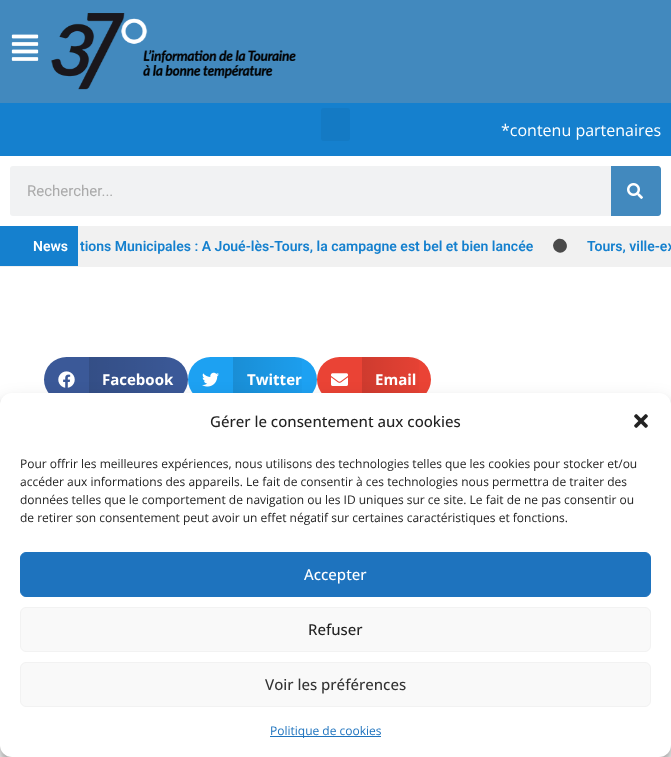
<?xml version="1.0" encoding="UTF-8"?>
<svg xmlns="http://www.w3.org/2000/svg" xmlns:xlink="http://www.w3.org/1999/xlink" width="671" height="757">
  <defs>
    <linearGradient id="g1" gradientUnits="userSpaceOnUse" x1="89" y1="380" x2="188" y2="380"><stop offset="0" stop-color="#000000" stop-opacity="0.12" /><stop offset="1" stop-color="#000000" stop-opacity="0" /></linearGradient>
    <linearGradient id="g2" gradientUnits="userSpaceOnUse" x1="233" y1="380" x2="317" y2="380"><stop offset="0" stop-color="#000000" stop-opacity="0.12" /><stop offset="1" stop-color="#000000" stop-opacity="0" /></linearGradient>
    <linearGradient id="g3" gradientUnits="userSpaceOnUse" x1="362" y1="380" x2="431" y2="380"><stop offset="0" stop-color="#000000" stop-opacity="0.12" /><stop offset="1" stop-color="#000000" stop-opacity="0" /></linearGradient>
  </defs>
  <rect width="100%" height="100%" fill="#ffffff" />
  <rect y="266" width="671" height="1" fill="#f1f1f1" />
  <rect width="671" height="103" fill="#4289be" />
  <image x="11" y="34" width="28" height="27" xlink:href="image1.png" />
  <image x="51" y="13" width="245" height="77" xlink:href="image2.png" />
  <rect y="103" width="671" height="53" fill="#1580ce" />
  <rect x="321" y="108" width="29" height="33" rx="3" fill="#147ac4" />
  <rect x="10" y="166" width="651" height="50" rx="3" fill="#f1f2f3" />
  <path d="M 611 166 h 47 c 1.5 0 3 1.5 3 3 v 44 c 0 1.5 -1.5 3 -3 3 h -47 z" fill="#4289be" />
  <image x="627" y="183" width="16" height="16" xlink:href="image3.png" />
  <rect y="226" width="78" height="40" fill="#1580ce" />
  <rect x="78" y="226" width="593" height="40" fill="#f1f1f1" />
  <path d="M 555 241 c 6.5 -6.5 16 3 10 9.5 c -6.5 6.5 -16 -3 -10 -9.5 z" fill="#4a4a4a" />
  <rect x="44" y="357" width="144" height="45" rx="22.5" fill="#3b5998" />
  <image x="58" y="371" width="17" height="17" xlink:href="image4.png" />
  <rect x="89" y="357" width="81" height="36" fill="url(#g1)" />
  <rect x="188" y="357" width="129" height="45" rx="22.5" fill="#1da1f2" />
  <image x="202" y="372" width="17" height="15" xlink:href="image5.png" />
  <rect x="233" y="357" width="69" height="36" fill="url(#g2)" />
  <rect x="317" y="357" width="114" height="45" rx="22.5" fill="#ea4335" />
  <image x="331" y="373" width="17" height="13" xlink:href="image6.png" />
  <rect x="362" y="357" width="57" height="36" fill="url(#g3)" />
  <rect y="399" width="671" height="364" rx="12" fill="#000000" fill-opacity="0.23" filter="blur(3px)" />
  <rect y="403" width="671" height="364" rx="12" fill="#000000" fill-opacity="0.19" filter="blur(10px)" />
  <rect y="393" width="671" height="364" rx="12" fill="#ffffff" />
  <image x="634" y="414" width="14" height="14" xlink:href="image7.png" />
  <rect x="20.5" y="552.5" width="630" height="44" rx="5.5" fill="#1e73be" stroke="#1e73be" />
  <rect x="20.5" y="607.5" width="630" height="44" rx="5.5" fill="#f9f9f9" stroke="#f2f2f2" />
  <rect x="20.5" y="662.5" width="630" height="44" rx="5.5" fill="#f9f9f9" stroke="#f2f2f2" />
  <rect x="270" y="736" width="111" height="1" fill="#1e73be" />
  <text x="501" y="136" style="font-family: Open Sans; font-size: 16px; fill: #ffffff">*contenu partenaires</text>
  <text x="27" y="196" style="font-family: Roboto; font-size: 15px; fill: #aaaaaa">Rechercher...</text>
  <text x="33" y="251" style="font-family: Roboto; font-size: 14px; font-weight: 600; fill: #ffffff">News</text>
  <text x="80" y="251" style="font-family: Roboto; font-size: 14px; font-weight: 600; fill: #1580ce">tions Municipales : A Joué-lès-Tours, la campagne est bel et bien lancée</text>
  <text x="587" y="251" style="font-family: Roboto; font-size: 14px; font-weight: 600; fill: #1580ce">Tours, ville-ex</text>
  <text x="102" y="385" style="font-family: Open Sans; font-size: 15px; font-weight: bold; fill: #ffffff">Facebook</text>
  <text x="247" y="385" style="font-family: Open Sans; font-size: 15px; font-weight: bold; fill: #ffffff">Twitter</text>
  <text x="375" y="385" style="font-family: Open Sans; font-size: 15px; font-weight: bold; fill: #ffffff">Email</text>
  <text x="210" y="427" style="font-family: Open Sans; font-size: 15px; font-weight: 500; fill: #222222">Gérer le consentement aux cookies</text>
  <text x="20" y="468" style="font-family: Open Sans; font-size: 12px; fill: #222222">Pour offrir les meilleures expériences, nous utilisons des technologies telles que les cookies pour stocker et/ou</text>
  <text x="20" y="486" style="font-family: Open Sans; font-size: 12px; fill: #222222">accéder aux informations des appareils. Le fait de consentir à ces technologies nous permettra de traiter des</text>
  <text x="20" y="504" style="font-family: Open Sans; font-size: 12px; fill: #222222">données telles que le comportement de navigation ou les ID uniques sur ce site. Le fait de ne pas consentir ou</text>
  <text x="20" y="522" style="font-family: Open Sans; font-size: 12px; fill: #222222">de retirer son consentement peut avoir un effet négatif sur certaines caractéristiques et fonctions.</text>
  <text x="304" y="580" style="font-family: Open Sans; font-size: 15px; font-weight: 500; fill: #ffffff">Accepter</text>
  <text x="308" y="635" style="font-family: Open Sans; font-size: 15px; font-weight: 500; fill: #222222">Refuser</text>
  <text x="265" y="690" style="font-family: Open Sans; font-size: 15px; font-weight: 500; fill: #333333">Voir les préférences</text>
  <text x="270" y="735" style="font-family: Open Sans; font-size: 12px; fill: #1e73be">Politique de cookies</text>
</svg>
